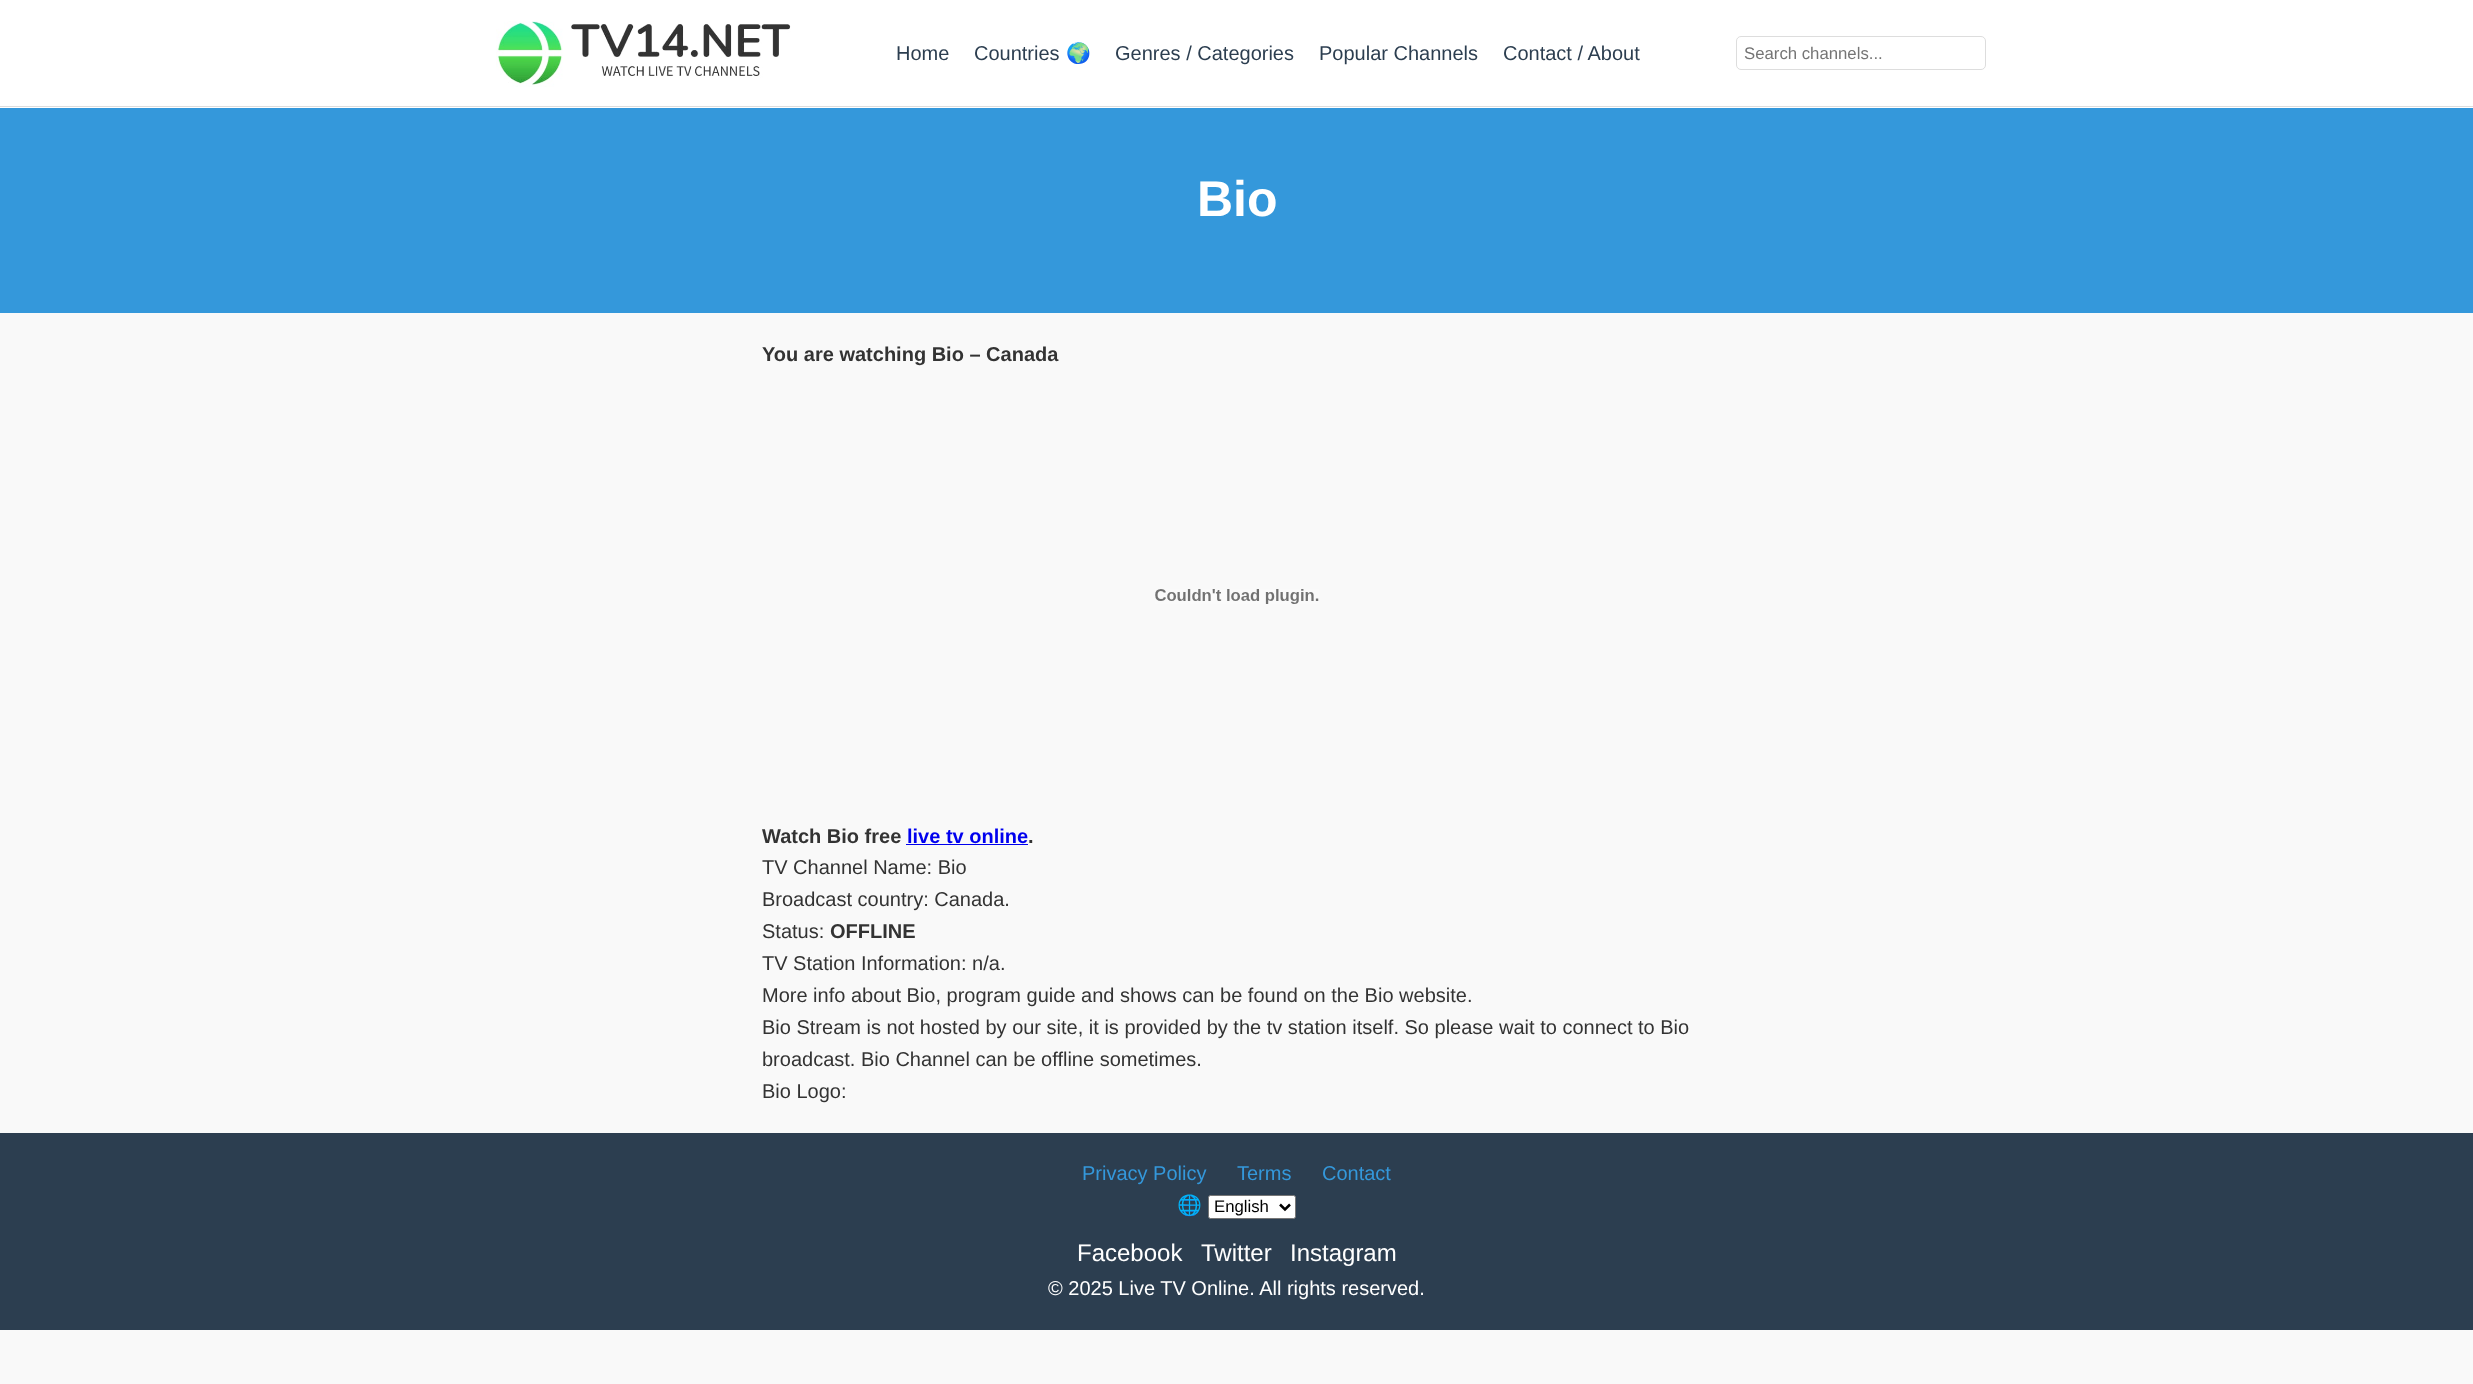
<?xml version="1.0" encoding="UTF-8"?>
<svg xmlns="http://www.w3.org/2000/svg" xmlns:xlink="http://www.w3.org/1999/xlink" width="2473" height="1384">
  <rect width="100%" height="100%" fill="#f9f9f9" />
  <rect width="2473" height="108" fill="#ffffff" />
  <rect y="106" width="2473" height="1" fill="#dddddd" />
  <image x="496" y="21" width="295" height="66" xlink:href="image1.png" />
  <rect x="1736.5" y="36.5" width="249" height="33" rx="4.5" fill="none" stroke="#dddddd" />
  <rect y="108" width="2473" height="205" fill="#3498db" />
  <image x="1155" y="589" width="164" height="15" xlink:href="image2.png" />
  <rect x="906" y="844" width="122" height="1" fill="#0000ee" />
  <rect y="1133" width="2473" height="197" fill="#2c3e50" />
  <rect x="1208.5" y="1195.5" width="87" height="23" rx="2" fill="#ffffff" stroke="#767676" />
  <path d="M 1280 1204.5 l 5 5 l 5 -5" fill="none" stroke="#000000" stroke-width="2.5" />
  <text x="896" y="60" style="font-family: Liberation Sans; font-size: 20px; fill: #2c3e50">Home</text>
  <text x="974" y="60" style="font-family: Liberation Sans; font-size: 20px; fill: #2c3e50">Countries</text>
  <text x="1066" y="60" style="font-family: Noto Color Emoji; font-size: 20px; fill: #2c3e50">🌍</text>
  <text x="1115" y="60" style="font-family: Liberation Sans; font-size: 20px; fill: #2c3e50">Genres / Categories</text>
  <text x="1319" y="60" style="font-family: Liberation Sans; font-size: 20px; fill: #2c3e50">Popular Channels</text>
  <text x="1503" y="60" style="font-family: Liberation Sans; font-size: 20px; fill: #2c3e50">Contact / About</text>
  <text x="1744" y="59" style="font-family: Liberation Sans; font-size: 16.75px; fill: #757575">Search channels...</text>
  <text x="1197" y="216" style="font-family: Liberation Sans; font-size: 50px; font-weight: bold; fill: #ffffff">Bio</text>
  <text x="762" y="361" style="font-family: Liberation Sans; font-size: 20px; font-weight: bold; fill: #333333">You are watching Bio – Canada</text>
  <text x="762" y="843" style="font-family: Liberation Sans; font-size: 20px; font-weight: bold; fill: #333333">Watch Bio free</text>
  <text x="907" y="843" style="font-family: Liberation Sans; font-size: 20px; font-weight: bold; fill: #0000ee">live tv online</text>
  <text x="1028" y="843" style="font-family: Liberation Sans; font-size: 20px; font-weight: bold; fill: #333333">.</text>
  <text x="762" y="874" style="font-family: Liberation Sans; font-size: 20px; fill: #333333">TV Channel Name: Bio</text>
  <text x="762" y="906" style="font-family: Liberation Sans; font-size: 20px; fill: #333333">Broadcast country: Canada.</text>
  <text x="762" y="938" style="font-family: Liberation Sans; font-size: 20px; fill: #333333">Status:</text>
  <text x="830" y="938" style="font-family: Liberation Sans; font-size: 20px; font-weight: bold; fill: #333333">OFFLINE</text>
  <text x="762" y="970" style="font-family: Liberation Sans; font-size: 20px; fill: #333333">TV Station Information: n/a.</text>
  <text x="762" y="1002" style="font-family: Liberation Sans; font-size: 20px; fill: #333333">More info about Bio, program guide and shows can be found on the Bio website.</text>
  <text x="762" y="1034" style="font-family: Liberation Sans; font-size: 20px; fill: #333333">Bio Stream is not hosted by our site, it is provided by the tv station itself. So please wait to connect to Bio</text>
  <text x="762" y="1066" style="font-family: Liberation Sans; font-size: 20px; fill: #333333">broadcast. Bio Channel can be offline sometimes.</text>
  <text x="762" y="1098" style="font-family: Liberation Sans; font-size: 20px; fill: #333333">Bio Logo:</text>
  <text x="1082" y="1180" style="font-family: Liberation Sans; font-size: 20px; fill: #3498db">Privacy Policy</text>
  <text x="1237" y="1180" style="font-family: Liberation Sans; font-size: 20px; fill: #3498db">Terms</text>
  <text x="1322" y="1180" style="font-family: Liberation Sans; font-size: 20px; fill: #3498db">Contact</text>
  <text x="1177" y="1212" style="font-family: Noto Color Emoji; font-size: 20px; fill: #ffffff">🌐</text>
  <text x="1214" y="1212" style="font-family: Liberation Sans; font-size: 16.75px; fill: #000000">English</text>
  <text x="1077" y="1261" style="font-family: Liberation Sans; font-size: 24px; fill: #ffffff">Facebook</text>
  <text x="1201" y="1261" style="font-family: Liberation Sans; font-size: 24px; fill: #ffffff">Twitter</text>
  <text x="1290" y="1261" style="font-family: Liberation Sans; font-size: 24px; fill: #ffffff">Instagram</text>
  <text x="1048" y="1295" style="font-family: Liberation Sans; font-size: 20px; fill: #ffffff">© 2025 Live TV Online. All rights reserved.</text>
</svg>
